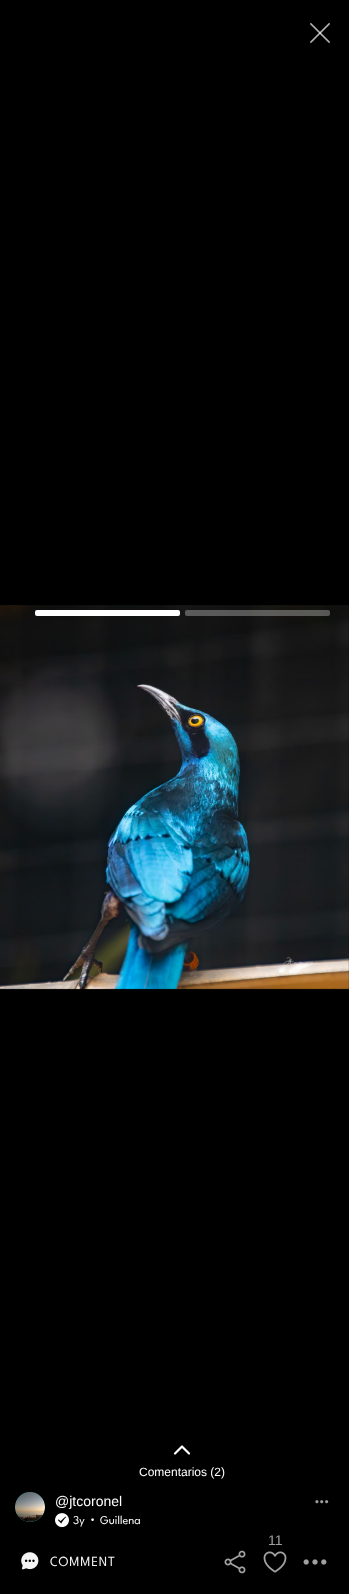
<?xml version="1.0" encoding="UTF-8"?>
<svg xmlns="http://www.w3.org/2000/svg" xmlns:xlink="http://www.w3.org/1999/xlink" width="349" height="1594">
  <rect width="100%" height="100%" fill="#000000" />
  <image x="310" y="23" width="20" height="20" xlink:href="image1.png" />
  <image x="0" y="605" width="349" height="385" xlink:href="image2.png" />
  <rect x="35" y="610" width="145" height="6" rx="2" fill="#ffffff" />
  <rect x="185" y="610" width="145" height="6" rx="2" fill="#ffffff" fill-opacity="0.3" />
  <path d="M 175 1453.5 l 7 -7 l 7 7" fill="none" stroke="#ffffff" stroke-width="2.2" stroke-linecap="round" stroke-linejoin="round" />
  <circle cx="30" cy="1507" r="15" fill="#3bc7c4" />
  <image x="15" y="1492" width="30" height="30" xlink:href="image3.png" />
  <image x="55" y="1513" width="14" height="15" xlink:href="image4.png" />
  <image x="315" y="1500" width="14" height="4" xlink:href="image5.png" />
  <image x="21" y="1552" width="18" height="18" xlink:href="image6.png" />
  <image x="224" y="1550" width="22" height="24" xlink:href="image7.png" />
  <image x="263" y="1551" width="24" height="22" xlink:href="image8.png" />
  <image x="303" y="1559" width="24" height="6" xlink:href="image9.png" />
  <text x="139" y="1476" style="font-family: Liberation Sans; font-size: 12px; fill: #ffffff">Comentarios (2)</text>
  <text x="55" y="1506" style="font-family: Liberation Sans; font-size: 14px; fill: #ffffff">@jtcoronel</text>
  <text x="73" y="1524" style="font-family: League Spartan; font-size: 12px; fill: #ffffff">3y</text>
  <text x="90" y="1524" style="font-family: League Spartan; font-size: 20px; fill: #ffffff">·</text>
  <text x="100" y="1524" style="font-family: League Spartan; font-size: 12px; fill: #ffffff">Guillena</text>
  <text x="268" y="1545" style="font-family: Liberation Sans; font-size: 14px; fill: #a1a1a1">11</text>
  <text x="50" y="1566" style="font-family: League Spartan; font-size: 14px; letter-spacing: 0.75px; fill: #f4f4f4">COMMENT</text>
</svg>
